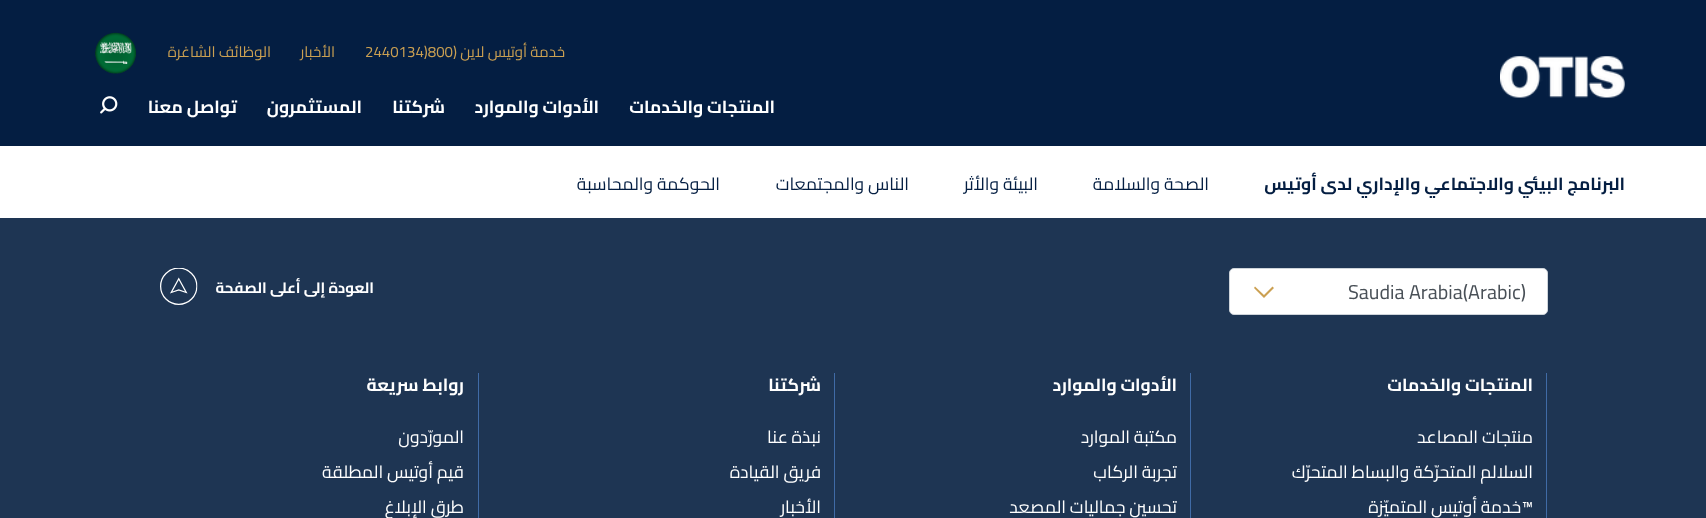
<?xml version="1.0" encoding="UTF-8"?>
<svg xmlns="http://www.w3.org/2000/svg" xmlns:xlink="http://www.w3.org/1999/xlink" width="1706" height="518">
  <rect width="100%" height="100%" fill="#ffffff" />
  <rect width="1706" height="146" fill="#041e42" />
  <image x="1500" y="56" width="125" height="42" xlink:href="image1.png" />
  <image x="95" y="32" width="41" height="42" xlink:href="image2.png" />
  <image x="100" y="96" width="18" height="18" xlink:href="image3.png" />
  <rect y="218" width="1706" height="300" fill="#1e3553" />
  <rect x="1229.5" y="268.5" width="318" height="46" rx="4.5" fill="#ffffff" stroke="#ced4da" />
  <path d="M 1264 298 l -10 -10 l 1 -1.5 l 9 8.5 l 8.5 -8.5 l 1.5 1.5 z" fill="#cba052" />
  <image x="160" y="268" width="38" height="37" xlink:href="image4.png" />
  <rect x="1546" y="373" width="1" height="145" fill="#406ba6" />
  <rect x="1190" y="373" width="1" height="145" fill="#406ba6" />
  <rect x="834" y="373" width="1" height="145" fill="#406ba6" />
  <rect x="478" y="373" width="1" height="145" fill="#406ba6" />
  <text x="565" y="57" style="font-family: Cairo; font-size: 15px; direction: rtl; fill: #cba052">خدمة أوتيس لاين (</text>
  <text x="365" y="57" style="font-family: Cairo; font-size: 15px; fill: #cba052">2440134)800</text>
  <text x="335" y="57" style="font-family: Cairo; font-size: 15px; direction: rtl; fill: #cba052">الأخبار</text>
  <text x="271" y="57" style="font-family: Cairo; font-size: 15px; direction: rtl; fill: #cba052">الوظائف الشاغرة</text>
  <text x="775" y="113" style="font-family: Cairo; font-size: 17.5px; font-weight: bold; direction: rtl; fill: #ffffff">المنتجات والخدمات</text>
  <text x="599" y="113" style="font-family: Cairo; font-size: 17.5px; font-weight: bold; direction: rtl; fill: #ffffff">الأدوات والموارد</text>
  <text x="445" y="113" style="font-family: Cairo; font-size: 17.5px; font-weight: bold; direction: rtl; fill: #ffffff">شركتنا</text>
  <text x="362" y="113" style="font-family: Cairo; font-size: 17.5px; font-weight: bold; direction: rtl; fill: #ffffff">المستثمرون</text>
  <text x="237" y="113" style="font-family: Cairo; font-size: 17.5px; font-weight: bold; direction: rtl; fill: #ffffff">تواصل معنا</text>
  <text x="1625" y="190" style="font-family: Cairo; font-size: 17.5px; font-weight: bold; direction: rtl; fill: #041e42">البرنامج البيئي والاجتماعي والإداري لدى أوتيس</text>
  <text x="1209" y="190" style="font-family: Cairo; font-size: 17.5px; direction: rtl; fill: #041e42">الصحة والسلامة</text>
  <text x="1038" y="190" style="font-family: Cairo; font-size: 17.5px; direction: rtl; fill: #041e42">البيئة والأثر</text>
  <text x="909" y="190" style="font-family: Cairo; font-size: 17.5px; direction: rtl; fill: #041e42">الناس والمجتمعات</text>
  <text x="720" y="190" style="font-family: Cairo; font-size: 17.5px; direction: rtl; fill: #041e42">الحوكمة والمحاسبة</text>
  <text x="1348" y="299" style="font-family: Cairo; font-size: 20px; fill: #495057">Saudia Arabia(Arabic) </text>
  <text x="374" y="293" style="font-family: Cairo; font-size: 15px; font-weight: bold; direction: rtl; fill: #ffffff">العودة إلى أعلى الصفحة</text>
  <text x="1533" y="391" style="font-family: Cairo; font-size: 17.5px; font-weight: bold; direction: rtl; fill: #ffffff">المنتجات والخدمات</text>
  <text x="1533" y="443" style="font-family: Cairo; font-size: 17.5px; direction: rtl; fill: #ffffff">منتجات المصاعد</text>
  <text x="1533" y="478" style="font-family: Cairo; font-size: 17.5px; direction: rtl; fill: #ffffff">السلالم المتحرّكة والبساط المتحرّك</text>
  <text x="1533" y="513" style="font-family: Cairo; font-size: 17.5px; direction: rtl; fill: #ffffff">™خدمة أوتيس المتميّزة</text>
  <text x="1177" y="391" style="font-family: Cairo; font-size: 17.5px; font-weight: bold; direction: rtl; fill: #ffffff">الأدوات والموارد</text>
  <text x="1177" y="443" style="font-family: Cairo; font-size: 17.5px; direction: rtl; fill: #ffffff">مكتبة الموارد</text>
  <text x="1177" y="478" style="font-family: Cairo; font-size: 17.5px; direction: rtl; fill: #ffffff">تجربة الركاب</text>
  <text x="1177" y="513" style="font-family: Cairo; font-size: 17.5px; direction: rtl; fill: #ffffff">تحسين جماليات المصعد</text>
  <text x="821" y="391" style="font-family: Cairo; font-size: 17.5px; font-weight: bold; direction: rtl; fill: #ffffff">شركتنا</text>
  <text x="821" y="443" style="font-family: Cairo; font-size: 17.5px; direction: rtl; fill: #ffffff">نبذة عنا</text>
  <text x="821" y="478" style="font-family: Cairo; font-size: 17.5px; direction: rtl; fill: #ffffff">فريق القيادة</text>
  <text x="821" y="513" style="font-family: Cairo; font-size: 17.5px; direction: rtl; fill: #ffffff">الأخبار</text>
  <text x="464" y="391" style="font-family: Cairo; font-size: 17.5px; font-weight: bold; direction: rtl; fill: #ffffff">روابط سريعة</text>
  <text x="464" y="443" style="font-family: Cairo; font-size: 17.5px; direction: rtl; fill: #ffffff">المورّدون</text>
  <text x="464" y="478" style="font-family: Cairo; font-size: 17.5px; direction: rtl; fill: #ffffff">قيم أوتيس المطلقة</text>
  <text x="464" y="513" style="font-family: Cairo; font-size: 17.5px; direction: rtl; fill: #ffffff">طرق الإبلاغ</text>
</svg>
